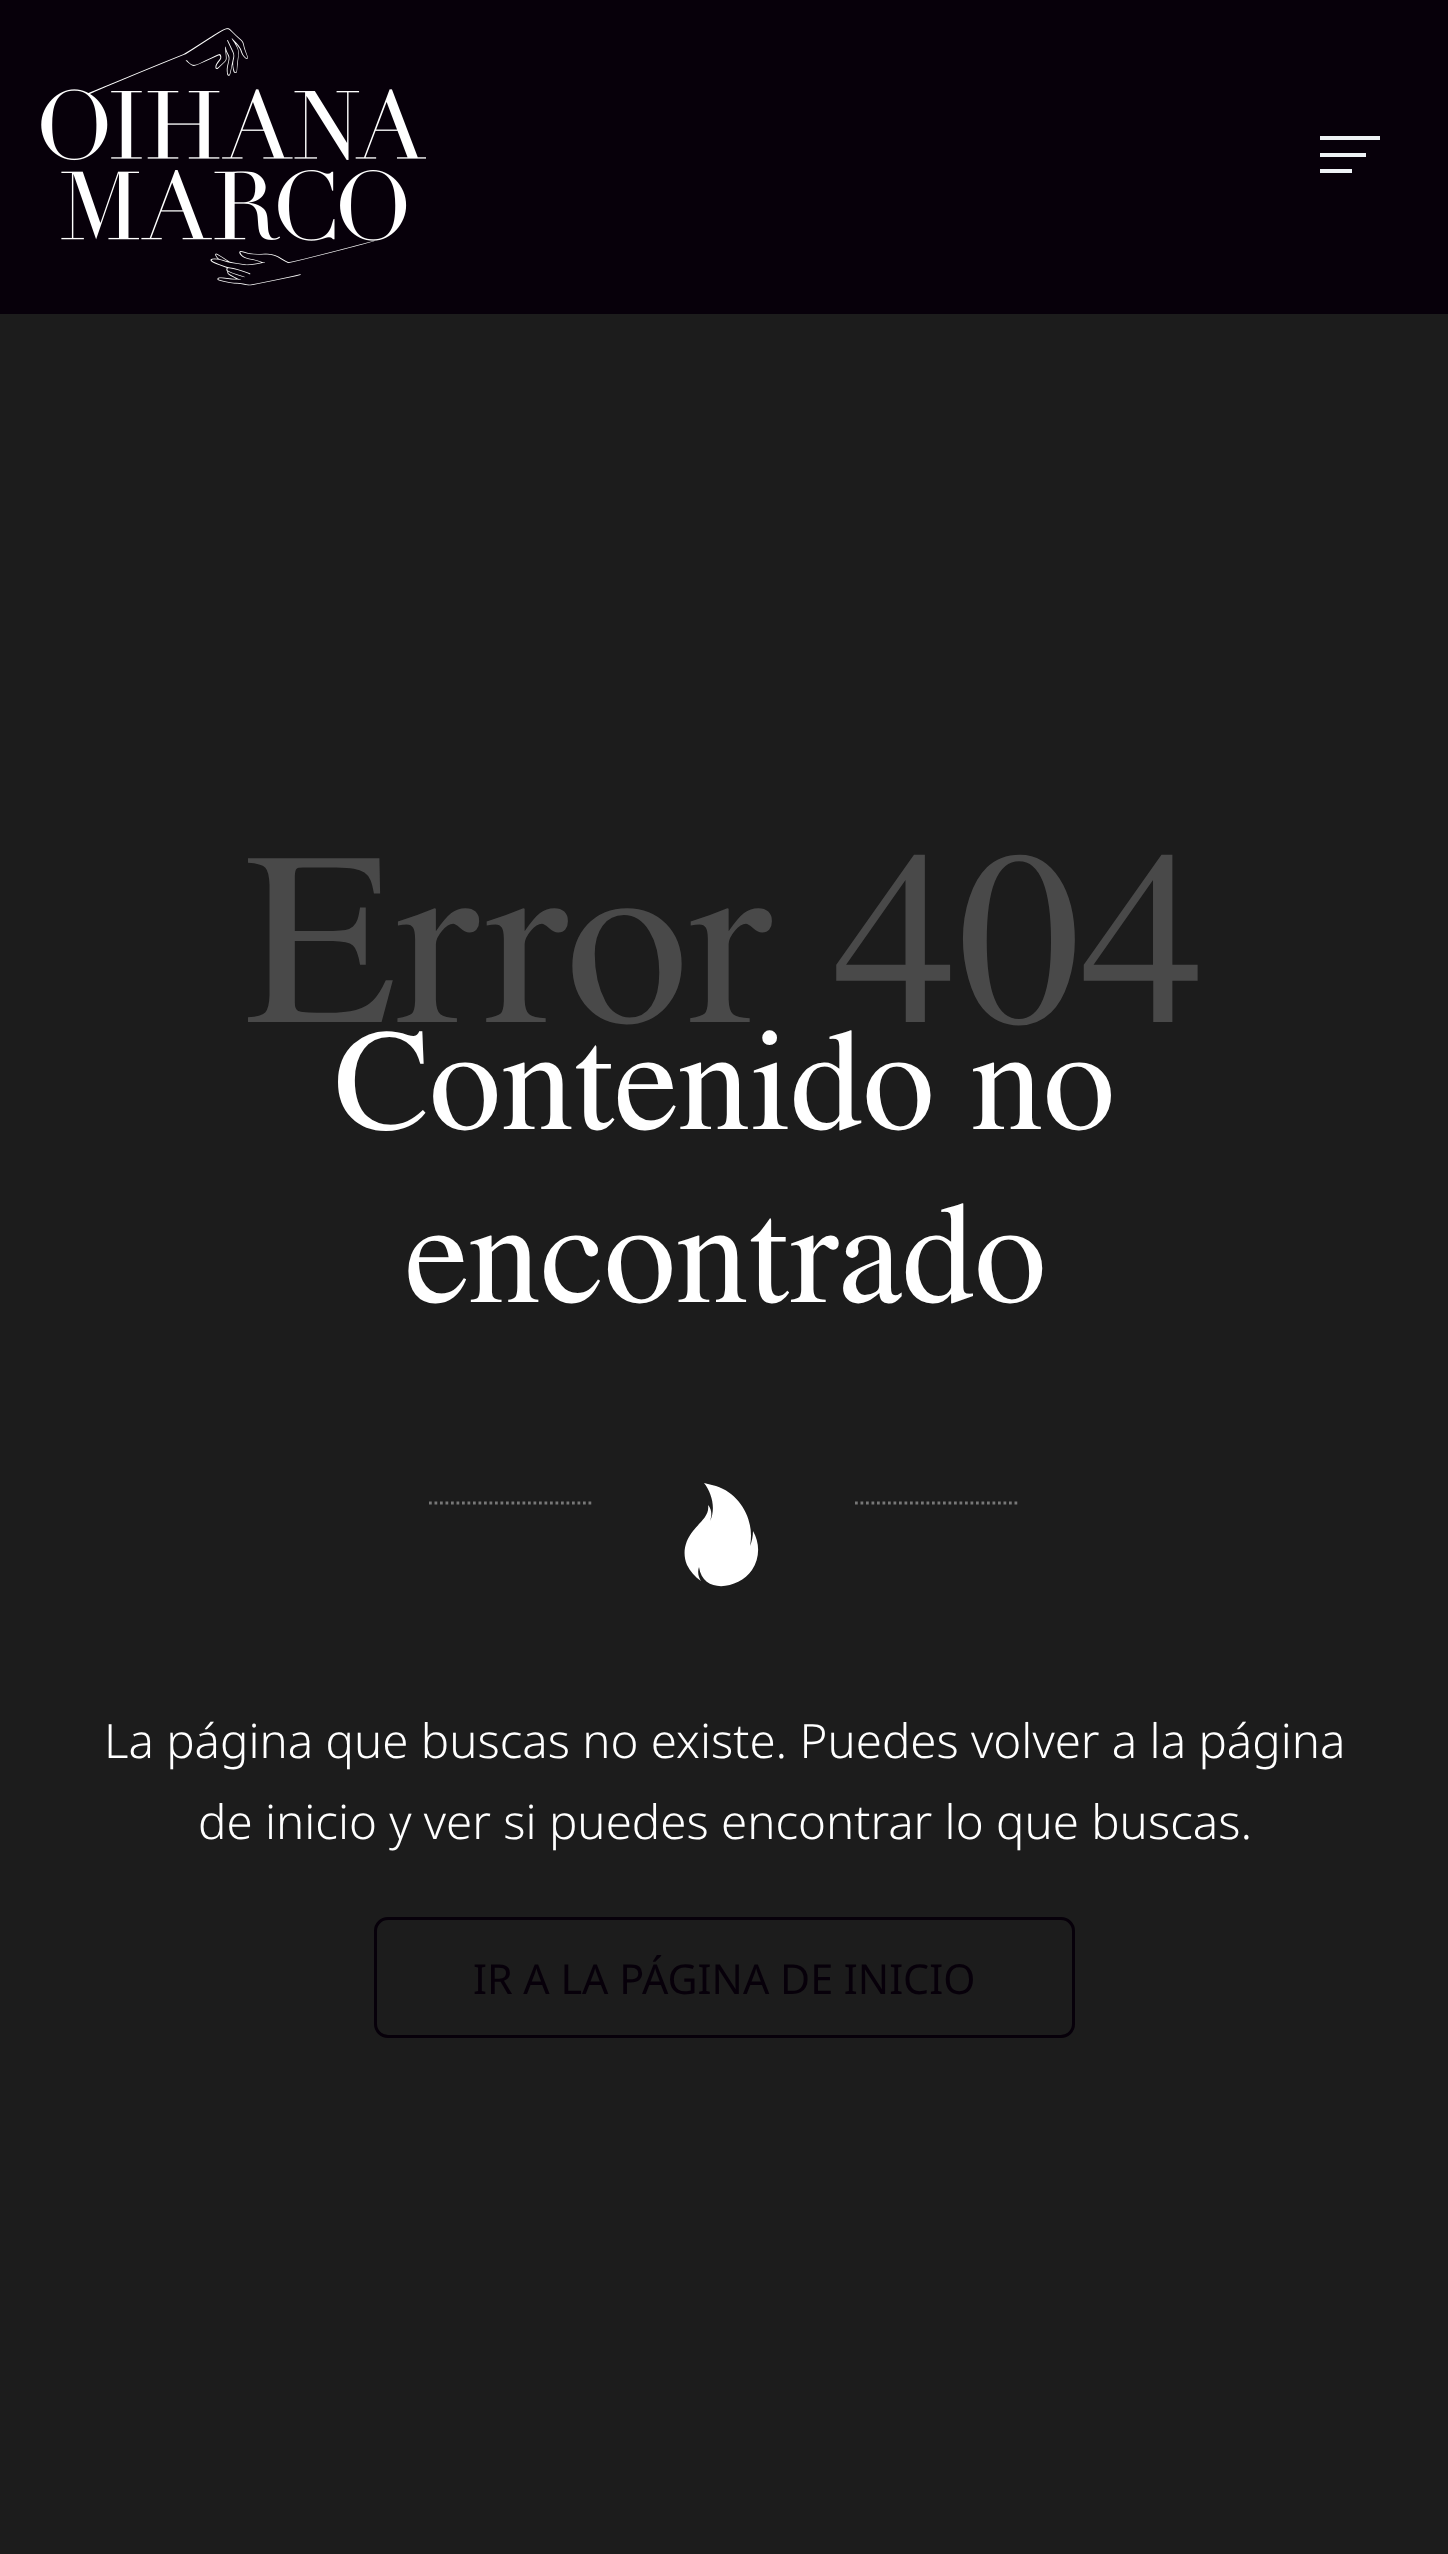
<?xml version="1.0" encoding="UTF-8"?>
<svg xmlns="http://www.w3.org/2000/svg" xmlns:xlink="http://www.w3.org/1999/xlink" width="1448" height="2554">
  <rect width="100%" height="100%" fill="#1c1c1c" />
  <rect width="1448" height="314" fill="#07000a" />
  <image x="41" y="28" width="385" height="258" xlink:href="image1.png" />
  <path d="M 1320 136 h 60 v 4 h -60 z m 0 17 h 46 v 4 h -46 z m 0 16 h 32 v 4 h -32 z" fill="#eef2f6" />
  <path d="M 429 1503 h 165" fill="none" stroke="#777777" stroke-width="2.8" stroke-dasharray="2.75 2.75" />
  <path d="M 753 1531 c 0 5 -1 10 -3 15 c 5 -25 -9 -52 -34 -60 l -12 -3 c 8 10 12 26 6 38 c 2 -5 2 -12 -2 -16 c 2 11 -9 18 -15 26 c -8 10 -11 22 -6 34 c 3 6 8 12 14 16 c -2 -3 -4 -8 -2 -14 c 4 28 40 22 53 3 c 8 -12 8 -27 1 -39 z" fill="#ffffff" />
  <path d="M 855 1503 h 165" fill="none" stroke="#777777" stroke-width="2.8" stroke-dasharray="2.75 2.75" />
  <rect x="375.5" y="1918.5" width="698" height="118" rx="12.5" fill="none" stroke="#07000a" stroke-width="3" />
  <text x="245" y="1022" style="font-family: 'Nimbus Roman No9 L'; font-size: 247.5px; fill: #494949">Error 404</text>
  <text x="334" y="1129" style="font-family: 'Nimbus Roman No9 L'; font-size: 144.5px; fill: #ffffff">Contenido no</text>
  <text x="404" y="1302" style="font-family: 'Nimbus Roman No9 L'; font-size: 144.5px; fill: #ffffff">encontrado</text>
  <text x="104" y="1758" style="font-family: Noto Sans; font-size: 47.45px; font-weight: 300; fill: #ffffff">La página que buscas no existe. Puedes volver a la página</text>
  <text x="198" y="1839" style="font-family: Noto Sans; font-size: 47.45px; font-weight: 300; fill: #ffffff">de inicio y ver si puedes encontrar lo que buscas.</text>
  <text x="473" y="1994" style="font-family: Noto Sans; font-size: 41.25px; fill: #07000a">IR A LA PÁGINA DE INICIO</text>
</svg>
